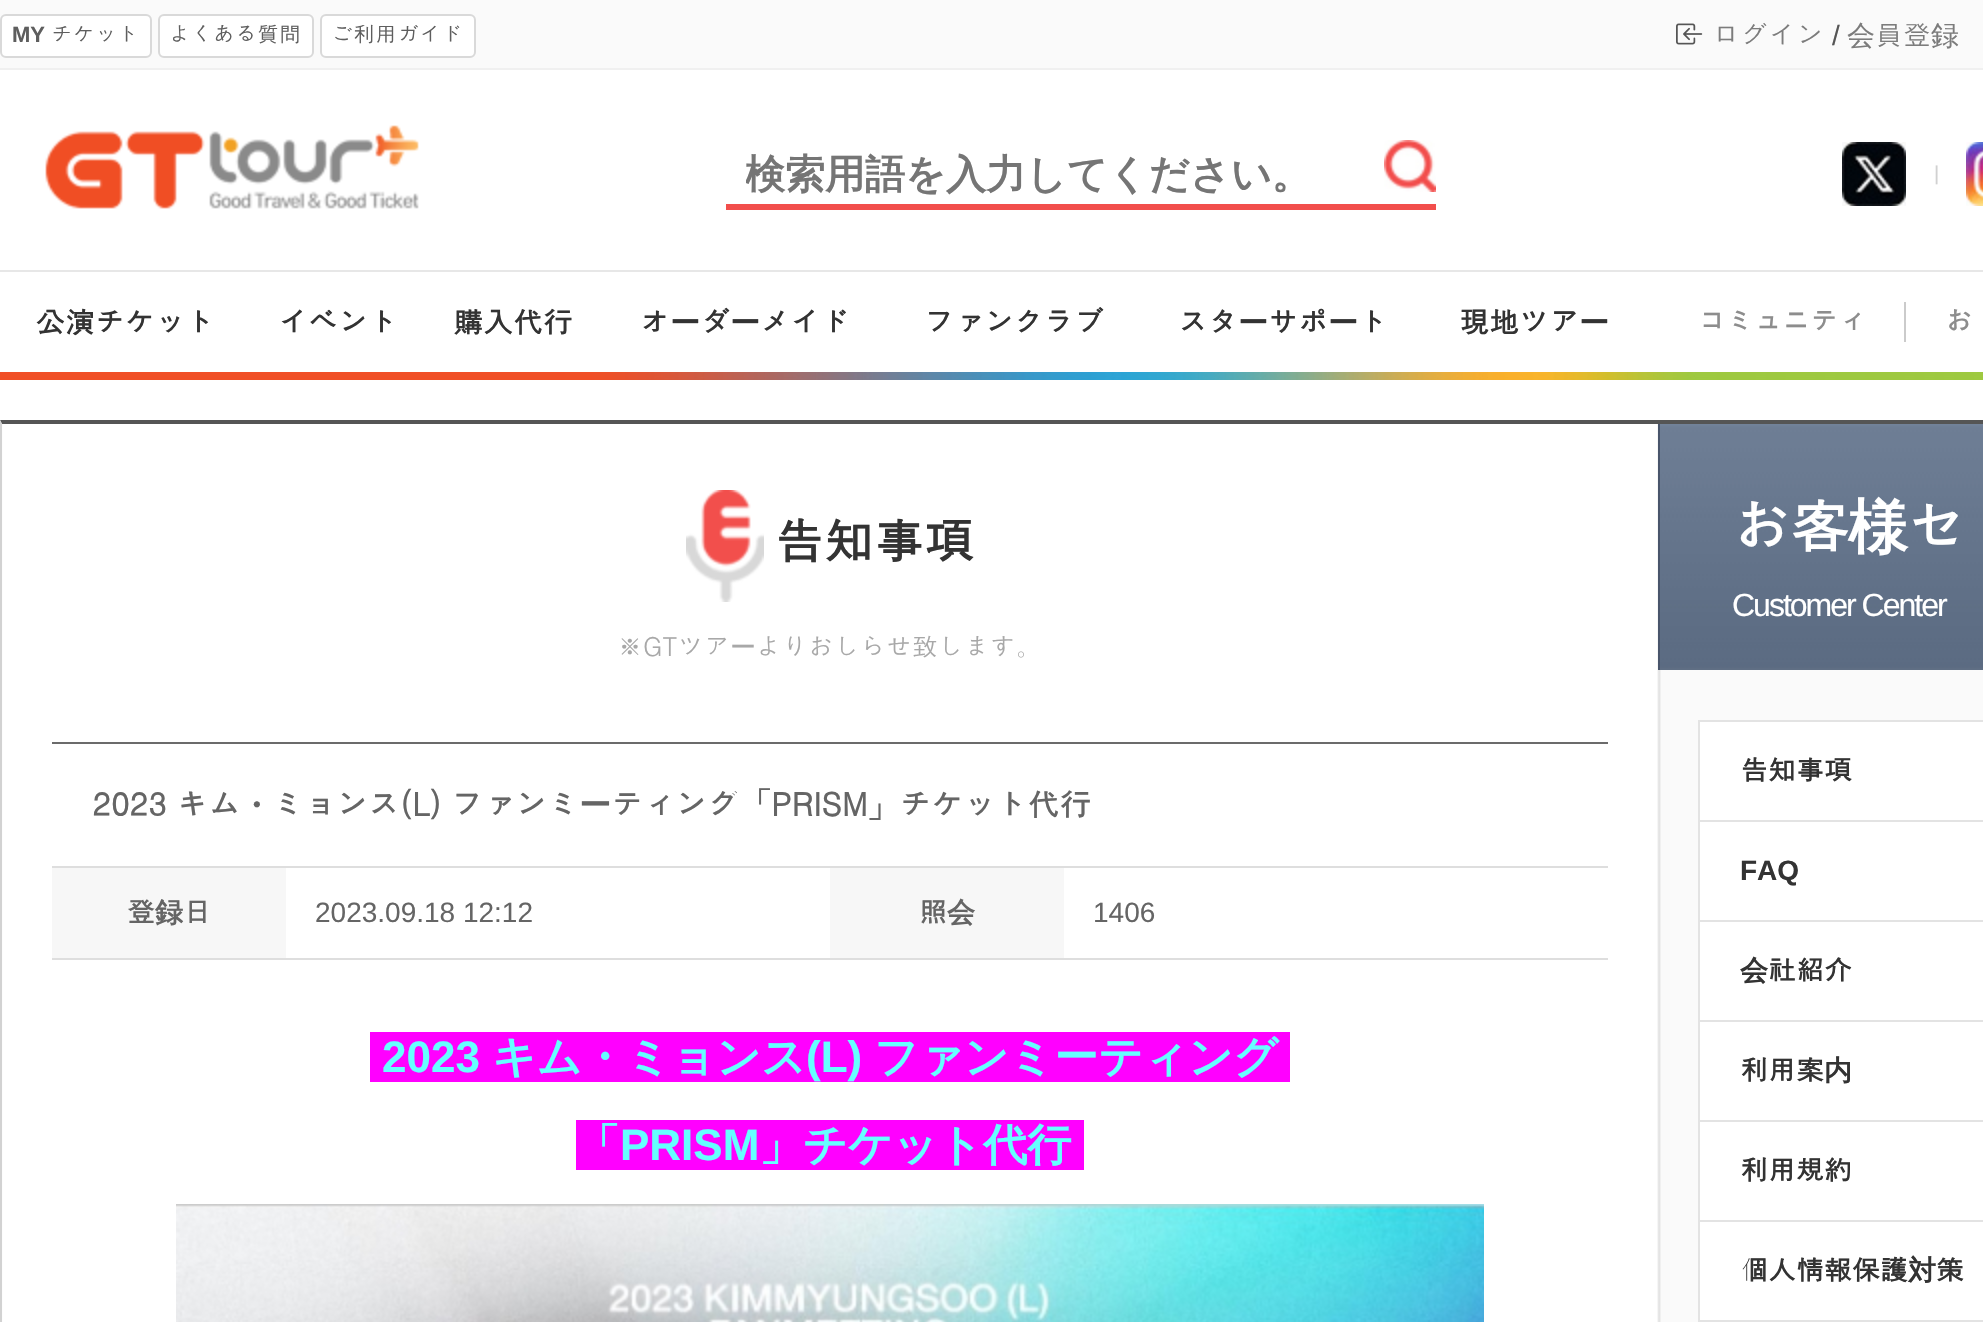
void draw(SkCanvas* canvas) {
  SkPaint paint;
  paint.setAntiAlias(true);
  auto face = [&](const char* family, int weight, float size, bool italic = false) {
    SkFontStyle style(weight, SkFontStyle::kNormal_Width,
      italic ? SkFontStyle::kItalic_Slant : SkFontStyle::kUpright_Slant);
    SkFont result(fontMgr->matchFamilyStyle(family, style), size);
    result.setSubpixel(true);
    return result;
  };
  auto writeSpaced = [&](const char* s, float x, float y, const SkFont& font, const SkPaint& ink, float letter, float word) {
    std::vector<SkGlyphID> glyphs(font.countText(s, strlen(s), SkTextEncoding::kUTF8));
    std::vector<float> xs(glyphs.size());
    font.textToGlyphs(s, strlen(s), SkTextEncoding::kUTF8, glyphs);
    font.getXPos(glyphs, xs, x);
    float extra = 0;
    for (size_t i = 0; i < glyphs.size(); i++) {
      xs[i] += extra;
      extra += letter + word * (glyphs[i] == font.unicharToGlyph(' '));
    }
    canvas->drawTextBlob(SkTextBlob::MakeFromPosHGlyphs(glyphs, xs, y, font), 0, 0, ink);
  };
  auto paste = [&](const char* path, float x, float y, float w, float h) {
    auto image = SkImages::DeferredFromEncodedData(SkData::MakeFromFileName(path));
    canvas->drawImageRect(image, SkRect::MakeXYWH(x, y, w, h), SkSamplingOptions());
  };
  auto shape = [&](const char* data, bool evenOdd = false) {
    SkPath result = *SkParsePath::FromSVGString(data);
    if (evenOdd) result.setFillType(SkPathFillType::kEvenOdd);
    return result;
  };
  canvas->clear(0xffffffff);
  paint.setColor(0xfffafafa);
  canvas->drawRect(SkRect::MakeXYWH(0, 0, 1983, 68), paint);
  paint.setColor(0xfff0f0f0);
  canvas->drawRect(SkRect::MakeXYWH(0, 68, 1983, 2), paint);
  paint.setColor(0xffffffff);
  canvas->drawRoundRect(SkRect::MakeXYWH(1, 15, 150, 42), 5, 5, paint);
  paint.setStroke(true);
  paint.setStrokeWidth(2);
  paint.setColor(0xffd9d9d9);
  canvas->drawRoundRect(SkRect::MakeXYWH(1, 15, 150, 42), 5, 5, paint);
  paint.setStroke(false);
  paint.setColor(0xffffffff);
  canvas->drawRoundRect(SkRect::MakeXYWH(159, 15, 154, 42), 5, 5, paint);
  paint.setStroke(true);
  paint.setColor(0xffd9d9d9);
  canvas->drawRoundRect(SkRect::MakeXYWH(159, 15, 154, 42), 5, 5, paint);
  paint.setStroke(false);
  paint.setColor(0xffffffff);
  canvas->drawRoundRect(SkRect::MakeXYWH(321, 15, 154, 42), 5, 5, paint);
  paint.setStroke(true);
  paint.setColor(0xffd9d9d9);
  canvas->drawRoundRect(SkRect::MakeXYWH(321, 15, 154, 42), 5, 5, paint);
  paste("img/1.png", 1676, 23, 27, 22);
  paint.setStroke(false);
  paint.setColor(0xffe7e7e7);
  canvas->drawRect(SkRect::MakeXYWH(0, 270, 1983, 2), paint);
  paste("img/2.png", 45, 125, 374, 84);
  paint.setColor(0xfff24e4c);
  canvas->drawRect(SkRect::MakeXYWH(726, 204, 710, 6), paint);
  paste("img/3.png", 1384, 140, 52, 52);
  paste("img/4.png", 1842, 142, 64, 64);
  paste("img/5.png", 1966, 142, 17, 64);
  paint.setColor(0xffcbcbcb);
  canvas->drawRect(SkRect::MakeXYWH(1904, 302, 2, 40), paint);
  paste("img/6.png", 0, 372, 1983, 8);
  paste("img/7.png", 0, 420, 1983, 902);
  paint.setColor(0xff555555);
  canvas->drawPath(shape("M0 420H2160L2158 424H2Z"), paint);
  paint.setColor(0xffd2d2d2);
  canvas->drawPath(shape("M0 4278V420L2 424V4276Z"), paint);
  paste("img/8.png", 686, 490, 78, 112);
  {
    const struct { float x, y, w, h; SkColor color; } items[] = {
      {52, 742, 1556, 2, 0xff6b6b6b},
      {52, 866, 1556, 2, 0xffdedede},
      {52, 868, 234, 90, 0xfff7f7f7},
      {52, 958, 1556, 2, 0xffdedede},
      {830, 868, 234, 90, 0xfff7f7f7},
      {370, 1032, 920, 50, 0xffff00ff},
      {576, 1120, 508, 50, 0xffff00ff},
    };
    for (auto [x, y, w, h, color] : items) {
      paint.setColor(color);
      canvas->drawRect(SkRect::MakeXYWH(x, y, w, h), paint);
    }
  }
  paste("img/9.png", 176, 1204, 1308, 118);
  paste("img/10.png", 1660, 424, 323, 246);
  paint.setColor(0xff49556b);
  canvas->drawRect(SkRect::MakeXYWH(1658, 424, 2, 246), paint);
  paint.setColor(0xffffffff);
  canvas->drawRect(SkRect::MakeXYWH(1700, 722, 283, 598), paint);
  paint.setStroke(true);
  paint.setColor(0xffe3e3e3);
  canvas->drawRect(SkRect::MakeXYWH(1699, 721, 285, 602), paint);
  paint.setStroke(false);
  {
    const struct { float x, y, w, h; SkColor color; } items[] = {
      {1700, 820, 283, 2, 0xffe3e3e3},
      {1700, 920, 283, 2, 0xffe3e3e3},
      {1700, 1020, 283, 2, 0xffe3e3e3},
      {1700, 1120, 283, 2, 0xffe3e3e3},
      {1700, 1220, 283, 2, 0xffe3e3e3},
      {1700, 1320, 283, 2, 0xffe3e3e3},
    };
    for (auto [x, y, w, h, color] : items) {
      paint.setColor(color);
      canvas->drawRect(SkRect::MakeXYWH(x, y, w, h), paint);
    }
  }
  auto f0 = face("Liberation Sans", 700, 22);
  paint.setColor(0xff5e5e5e);
  canvas->drawString("MY", 12, 42, f0, paint);
  auto f1 = face("Dotum", 400, 22);
  {
    const struct { const char* s; float x, y; } items[] = {
      {"チケット", 51, 42},
      {"よくある質問", 169, 42},
      {"ご利用ガイド", 331, 42},
    };
    for (auto [s, x, y] : items) {
      canvas->drawString(s, x, y, f1, paint);
    }
  }
  auto f2 = face("Dotum", 400, 28);
  paint.setColor(0xff7c7c7c);
  canvas->drawString("ログイン", 1712, 45, f2, paint);
  auto f3 = face("Liberation Sans", 400, 28);
  paint.setColor(0xff555555);
  canvas->drawString("/", 1832, 45, f3, paint);
  auto f4 = face("WenQuanYi Zen Hei", 500, 28);
  paint.setColor(0xff7c7c7c);
  canvas->drawString("会", 1847, 45, f4, paint);
  canvas->drawString("員登", 1875, 45, f2, paint);
  canvas->drawString("録", 1931, 45, f4, paint);
  canvas->save();
  canvas->clipRect(SkRect::MakeXYWH(746, 148, 620, 54));
  auto f5 = face("WenQuanYi Zen Hei", 700, 40);
  paint.setColor(0xff757575);
  canvas->drawString("検索用語を入力してください。", 745, 188, f5, paint);
  canvas->restore();
  auto f6 = face("Liberation Sans", 400, 20);
  paint.setColor(0xffd1d1d1);
  canvas->drawString("|", 1934, 180, f6, paint);
  auto f7 = face("Dotum", 700, 30);
  paint.setColor(0xff333333);
  {
    const struct { const char* s; float x, y; } items[] = {
      {"公演チケット", 35, 333},
      {"イベント", 278, 333},
      {"購入代行", 453, 333},
      {"オ", 640, 333},
    };
    for (auto [s, x, y] : items) {
      canvas->drawString(s, x, y, f7, paint);
    }
  }
  auto f8 = face("WenQuanYi Zen Hei", 700, 30);
  canvas->drawString("ー", 670, 333, f8, paint);
  canvas->drawString("ダ", 700, 333, f7, paint);
  canvas->drawString("ー", 730, 333, f8, paint);
  {
    const struct { const char* s; float x, y; } items[] = {
      {"メイド", 760, 333},
      {"ファンクラブ", 924, 333},
      {"スタ", 1178, 333},
    };
    for (auto [s, x, y] : items) {
      canvas->drawString(s, x, y, f7, paint);
    }
  }
  canvas->drawString("ー", 1238, 333, f8, paint);
  canvas->drawString("サポ", 1268, 333, f7, paint);
  canvas->drawString("ー", 1328, 333, f8, paint);
  canvas->drawString("ト", 1358, 333, f7, paint);
  canvas->drawString("現地ツア", 1459, 333, f7, paint);
  canvas->drawString("ー", 1579, 333, f8, paint);
  auto f9 = face("Dotum", 700, 28);
  paint.setColor(0xff8d8d8d);
  canvas->drawString("コミュニティ", 1698, 331, f9, paint);
  canvas->drawString("お", 1945, 331, f9, paint);
  auto f10 = face("Dotum", 700, 50);
  paint.setColor(0xff333333);
  canvas->drawString("告知事項", 774, 559, f10, paint);
  auto f11 = face("Dotum", 400, 26);
  paint.setColor(0xffa8a8a8);
  canvas->drawString("※GTツア", 617, 656, f11, paint);
  auto f12 = face("WenQuanYi Zen Hei", 500, 26);
  canvas->drawString("ー", 730, 656, f12, paint);
  canvas->drawString("よりおしらせ致します。", 756, 656, f11, paint);
  auto f13 = face("Dotum", 700, 32);
  paint.setColor(0xff656565);
  writeSpaced("2023 キム", 92, 816, f13, paint, 0, -1);
  auto f14 = face("WenQuanYi Zen Hei", 700, 32);
  canvas->drawString("・", 240, 816, f14, paint);
  writeSpaced("ミョンス(L) ファンミ", 272, 816, f13, paint, 0, -1);
  canvas->drawString("ー", 579, 816, f14, paint);
  canvas->drawString("ティング「PRISM」チケット代行", 611, 816, f13, paint);
  canvas->drawString("登", 127, 922, f9, paint);
  auto f15 = face("WenQuanYi Zen Hei", 700, 28);
  canvas->drawString("録", 155, 922, f15, paint);
  canvas->drawString("日", 183, 922, f9, paint);
  canvas->drawString("2023.09.18 12:12", 315, 922, f3, paint);
  canvas->drawString("照", 919, 922, f9, paint);
  canvas->drawString("会", 947, 922, f15, paint);
  canvas->drawString("1406", 1093, 922, f3, paint);
  auto f16 = face("Liberation Sans", 700, 44);
  paint.setColor(0xff66ffff);
  canvas->drawString("2023", 382, 1072, f16, paint);
  auto f17 = face("WenQuanYi Zen Hei", 700, 44);
  canvas->drawString("キム・ミョンス", 492, 1072, f17, paint);
  canvas->drawString("(L)", 806, 1072, f16, paint);
  canvas->drawString("ファンミーティング", 874, 1072, f17, paint);
  canvas->drawString("「", 576, 1160, f17, paint);
  canvas->drawString("PRISM", 620, 1160, f16, paint);
  canvas->drawString("」チケット代行", 759, 1160, f17, paint);
  auto f18 = face("Dotum", 700, 60);
  paint.setColor(0xffffffff);
  writeSpaced("お客", 1732, 548, f18, paint, -2, 0);
  auto f19 = face("WenQuanYi Zen Hei", 700, 60);
  writeSpaced("様", 1848, 548, f19, paint, -2, 0);
  writeSpaced("セ", 1906, 548, f18, paint, -2, 0);
  auto f20 = face("Liberation Sans", 400, 32);
  writeSpaced("Customer Center", 1732, 616, f20, paint, -2, 0);
  paint.setColor(0xff333333);
  canvas->drawString("告知事項", 1740, 780, f9, paint);
  auto f21 = face("Liberation Sans", 700, 28);
  canvas->drawString("FAQ", 1740, 880, f21, paint);
  canvas->drawString("会", 1740, 980, f15, paint);
  canvas->drawString("社紹介", 1768, 980, f9, paint);
  canvas->drawString("利用案", 1740, 1080, f9, paint);
  canvas->drawString("内", 1824, 1080, f15, paint);
  canvas->drawString("利用規約", 1740, 1180, f9, paint);
  canvas->drawString("個人情報保護", 1740, 1280, f9, paint);
  canvas->drawString("対", 1908, 1280, f15, paint);
  canvas->drawString("策", 1936, 1280, f9, paint);
}
